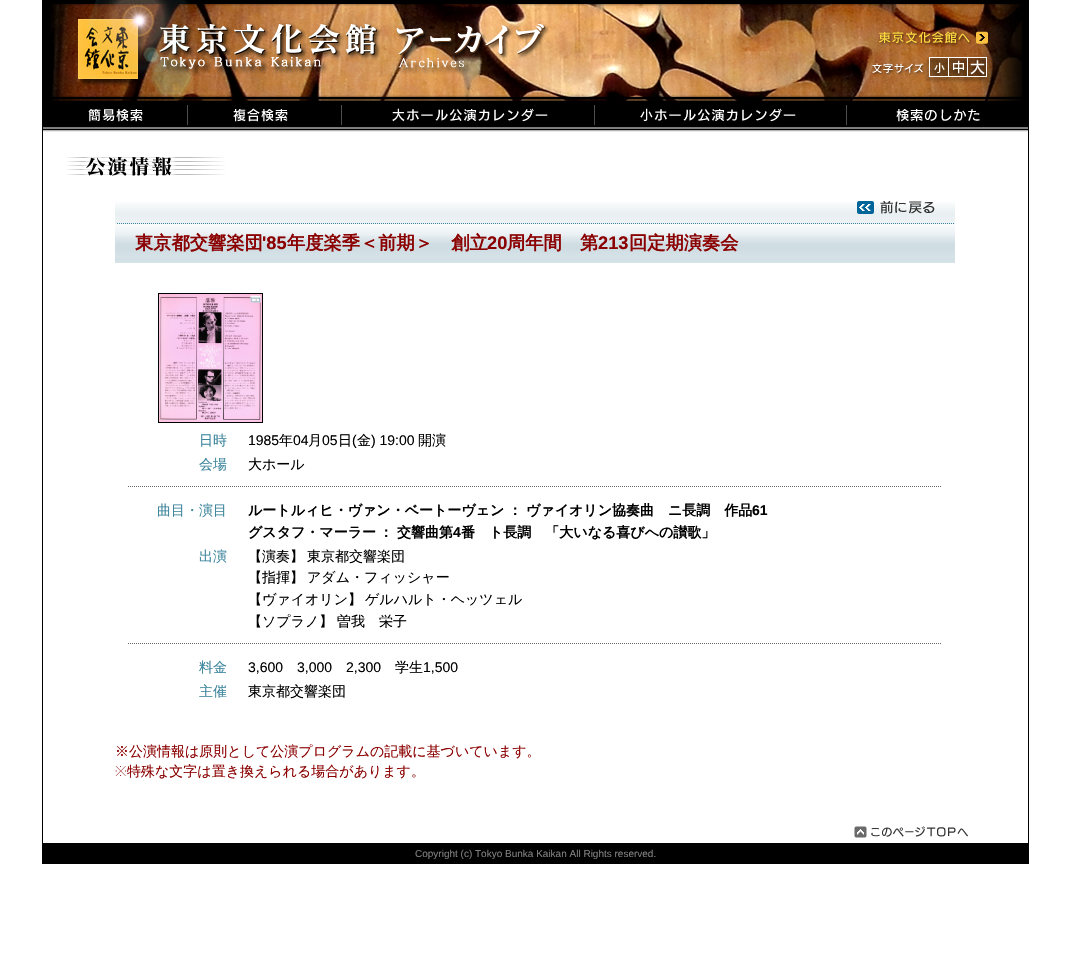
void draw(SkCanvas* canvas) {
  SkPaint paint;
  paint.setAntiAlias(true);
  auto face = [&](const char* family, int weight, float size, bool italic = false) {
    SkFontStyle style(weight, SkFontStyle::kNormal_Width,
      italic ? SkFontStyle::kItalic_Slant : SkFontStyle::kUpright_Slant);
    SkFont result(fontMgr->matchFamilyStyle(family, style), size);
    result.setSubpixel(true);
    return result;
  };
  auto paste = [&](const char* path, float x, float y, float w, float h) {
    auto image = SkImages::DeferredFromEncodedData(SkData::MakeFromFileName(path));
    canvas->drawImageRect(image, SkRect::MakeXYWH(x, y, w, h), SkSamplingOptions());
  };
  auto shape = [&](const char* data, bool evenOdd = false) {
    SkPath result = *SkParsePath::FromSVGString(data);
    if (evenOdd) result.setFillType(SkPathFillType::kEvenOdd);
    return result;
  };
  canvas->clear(0xffffffff);
  paint.setColor(0xff000000);
  canvas->drawRect(SkRect::MakeXYWH(1028, 0, 1, 864), paint);
  canvas->drawRect(SkRect::MakeXYWH(42, 0, 1, 864), paint);
  paste("img/1.png", 43, 0, 985, 101);
  paste("img/2.png", 78, 0, 471, 86);
  paste("img/3.png", 879, 31, 109, 15);
  paste("img/4.png", 872, 57, 57, 26);
  paste("img/5.png", 929, 57, 19, 26);
  paste("img/6.png", 948, 57, 19, 26);
  paste("img/7.png", 967, 57, 21, 26);
  paste("img/8.png", 43, 101, 144, 31);
  paste("img/9.png", 187, 101, 154, 31);
  paste("img/10.png", 341, 101, 253, 31);
  paste("img/11.png", 594, 101, 252, 31);
  paste("img/12.png", 846, 101, 182, 31);
  paste("img/13.png", 67, 157, 158, 19);
  paste("img/14.png", 115, 202, 840, 22);
  paste("img/15.png", 857, 201, 78, 13);
  paste("img/16.png", 115, 224, 840, 39);
  paint.setStroke(true);
  paint.setStrokeWidth(1);
  canvas->drawRect(SkRect::MakeXYWH(158.5f, 293.5f, 104, 129), paint);
  paste("img/17.png", 159, 294, 103, 128);
  paint.setColor(0xff666666);
  paint.setPathEffect(SkDashPathEffect::Make({{1, 1}}, 0));
  canvas->drawPath(shape("M128 486.5H942"), paint);
  paint.setPathEffect(nullptr);
  paint.setPathEffect(SkDashPathEffect::Make({{1, 1}}, 0));
  canvas->drawPath(shape("M128 643.5H942"), paint);
  paint.setPathEffect(nullptr);
  paste("img/18.png", 854, 826, 114, 12);
  paint.setStroke(false);
  paint.setColor(0xff000000);
  canvas->drawRect(SkRect::MakeXYWH(43, 843, 985, 21), paint);
  auto f0 = face("WenQuanYi Zen Hei", 700, 18.25f);
  paint.setColor(0xff8b0000);
  canvas->drawString("東京都交響楽団", 135, 249, f0, paint);
  auto f1 = face("Liberation Sans", 700, 18.25f);
  canvas->drawString("'85", 262, 249, f1, paint);
  canvas->drawString("年度楽季＜前期＞　創立", 287, 249, f0, paint);
  canvas->drawString("20", 487, 249, f1, paint);
  canvas->drawString("周年間　第", 507, 249, f0, paint);
  canvas->drawString("213", 598, 249, f1, paint);
  canvas->drawString("回定期演奏会", 629, 249, f0, paint);
  auto f2 = face("WenQuanYi Zen Hei", 500, 14);
  paint.setColor(0xff3e869d);
  canvas->drawString("日時", 199, 445, f2, paint);
  auto f3 = face("Liberation Sans", 400, 14);
  paint.setColor(0xff000000);
  canvas->drawString("1985", 248, 445, f3, paint);
  canvas->drawString("年", 279, 445, f2, paint);
  canvas->drawString("04", 293, 445, f3, paint);
  canvas->drawString("月", 308, 445, f2, paint);
  canvas->drawString("05", 322, 445, f3, paint);
  canvas->drawString("日", 338, 445, f2, paint);
  canvas->drawString("(", 352, 445, f3, paint);
  canvas->drawString("金", 357, 445, f2, paint);
  canvas->drawString(") 19:00", 371, 445, f3, paint);
  canvas->drawString("開演", 418, 445, f2, paint);
  paint.setColor(0xff3e869d);
  canvas->drawString("会場", 199, 469, f2, paint);
  paint.setColor(0xff000000);
  canvas->drawString("大ホール", 248, 469, f2, paint);
  paint.setColor(0xff3e869d);
  canvas->drawString("曲目・演目", 157, 515, f2, paint);
  auto f4 = face("WenQuanYi Zen Hei", 700, 14);
  paint.setColor(0xff000000);
  {
    const struct { const char* s; float x, y; } items[] = {
      {"ルートルィヒ・ヴァン・ベートーヴェン", 248, 515},
      {"：", 508, 515},
      {"ヴァイオリン協奏曲　ニ長調　作品", 526, 515},
    };
    for (auto [s, x, y] : items) {
      canvas->drawString(s, x, y, f4, paint);
    }
  }
  auto f5 = face("Liberation Sans", 700, 14);
  canvas->drawString("61", 752, 515, f5, paint);
  {
    const struct { const char* s; float x, y; } items[] = {
      {"グスタフ・マーラー", 248, 537},
      {"：", 379, 537},
      {"交響曲第", 397, 537},
    };
    for (auto [s, x, y] : items) {
      canvas->drawString(s, x, y, f4, paint);
    }
  }
  canvas->drawString("4", 453, 537, f5, paint);
  canvas->drawString("番　ト長調　「大いなる喜びへの讃歌」", 461, 537, f4, paint);
  paint.setColor(0xff3e869d);
  canvas->drawString("出演", 199, 561, f2, paint);
  paint.setColor(0xff000000);
  {
    const struct { const char* s; float x, y; } items[] = {
      {"【演奏】", 248, 561},
      {"東京都交響楽団", 307, 561},
      {"【指揮】", 248, 582},
      {"アダム・フィッシャー", 307, 582},
      {"【ヴァイオリン】", 248, 604},
      {"ゲルハルト・ヘッツェル", 365, 604},
      {"【ソプラノ】", 248, 626},
      {"曽我　栄子", 337, 626},
    };
    for (auto [s, x, y] : items) {
      canvas->drawString(s, x, y, f2, paint);
    }
  }
  paint.setColor(0xff3e869d);
  canvas->drawString("料金", 199, 672, f2, paint);
  paint.setColor(0xff000000);
  {
    const struct { const char* s; float x, y; } items[] = {
      {"3,600", 248, 672},
      {"3,000", 297, 672},
      {"2,300", 346, 672},
    };
    for (auto [s, x, y] : items) {
      canvas->drawString(s, x, y, f3, paint);
    }
  }
  canvas->drawString("学生", 395, 672, f2, paint);
  canvas->drawString("1,500", 423, 672, f3, paint);
  paint.setColor(0xff3e869d);
  canvas->drawString("主催", 199, 696, f2, paint);
  paint.setColor(0xff000000);
  canvas->drawString("東京都交響楽団", 248, 696, f2, paint);
  paint.setColor(0xff8b0000);
  canvas->drawString("※公演情報は原則として公演プログラムの記載に基づいています。", 115, 756, f2, paint);
  auto f6 = face("Noto Sans", 100, 14);
  canvas->drawString("※", 115, 776, f6, paint);
  canvas->drawString("特殊な文字は置き換えられる場合があります。", 127, 776, f2, paint);
  auto f7 = face("Liberation Sans", 400, 10);
  paint.setColor(0xff808080);
  canvas->drawString("Copyright (c) Tokyo Bunka Kaikan All Rights reserved.", 415, 857, f7, paint);
}
